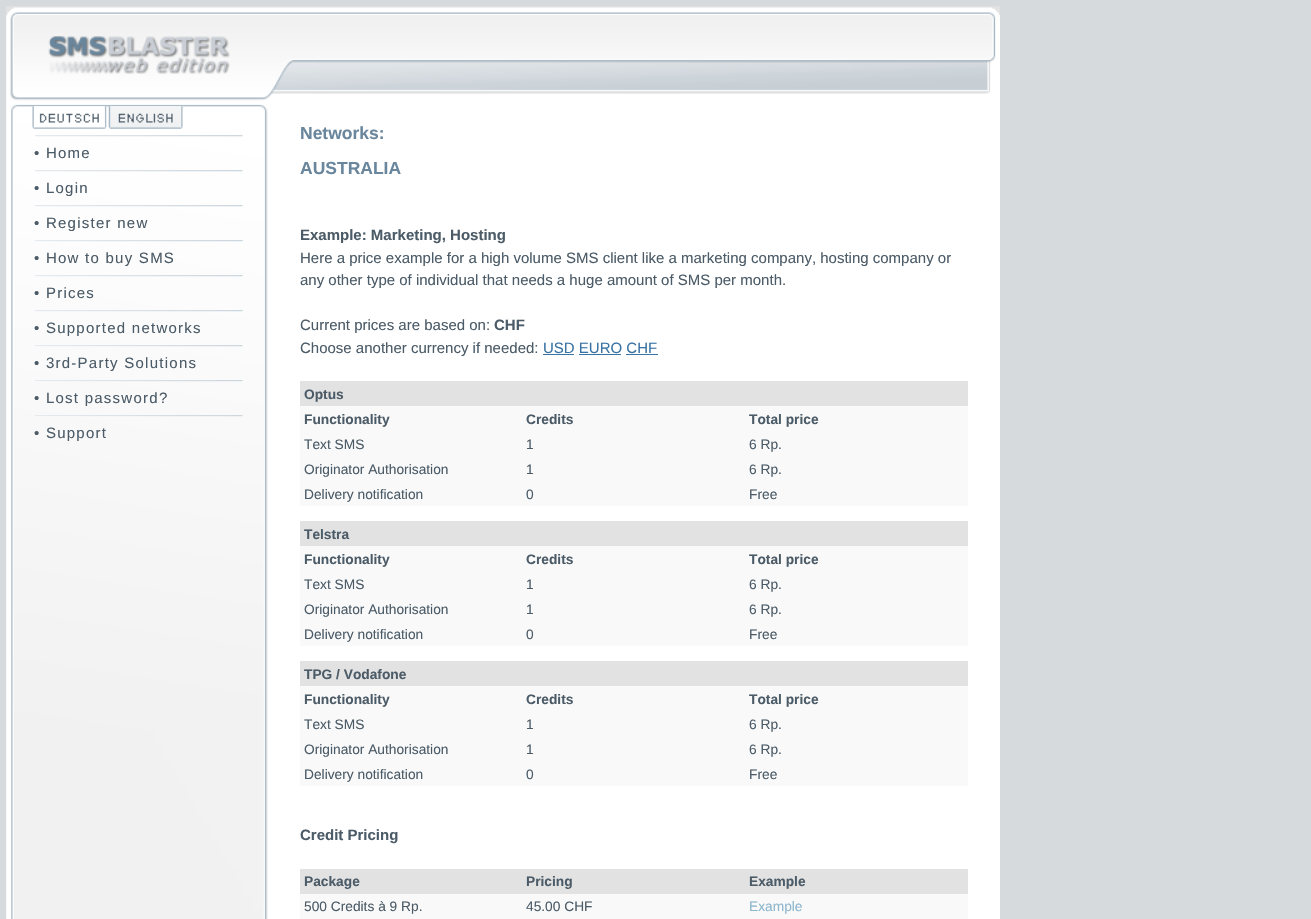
void draw(SkCanvas* canvas) {
  SkPaint paint;
  paint.setAntiAlias(true);
  auto face = [&](const char* family, int weight, float size, bool italic = false) {
    SkFontStyle style(weight, SkFontStyle::kNormal_Width,
      italic ? SkFontStyle::kItalic_Slant : SkFontStyle::kUpright_Slant);
    SkFont result(fontMgr->matchFamilyStyle(family, style), size);
    result.setSubpixel(true);
    return result;
  };
  auto writeSpaced = [&](const char* s, float x, float y, const SkFont& font, const SkPaint& ink, float letter, float word) {
    std::vector<SkGlyphID> glyphs(font.countText(s, strlen(s), SkTextEncoding::kUTF8));
    std::vector<float> xs(glyphs.size());
    font.textToGlyphs(s, strlen(s), SkTextEncoding::kUTF8, glyphs);
    font.getXPos(glyphs, xs, x);
    float extra = 0;
    for (size_t i = 0; i < glyphs.size(); i++) {
      xs[i] += extra;
      extra += letter + word * (glyphs[i] == font.unicharToGlyph(' '));
    }
    canvas->drawTextBlob(SkTextBlob::MakeFromPosHGlyphs(glyphs, xs, y, font), 0, 0, ink);
  };
  auto paste = [&](const char* path, float x, float y, float w, float h) {
    auto image = SkImages::DeferredFromEncodedData(SkData::MakeFromFileName(path));
    canvas->drawImageRect(image, SkRect::MakeXYWH(x, y, w, h), SkSamplingOptions());
  };
  canvas->clear(0xffd7dadc);
  paste("img/1.png", 6, 6, 994, 913);
  paste("img/2.png", 32, 106, 75, 23);
  paste("img/3.png", 108, 106, 75, 23);
  paste("img/4.png", 35, 135, 208, 2);
  paste("img/5.png", 35, 170, 208, 2);
  paste("img/5.png", 35, 205, 208, 2);
  paste("img/6.png", 35, 240, 208, 2);
  paste("img/6.png", 35, 275, 208, 2);
  paste("img/7.png", 35, 310, 208, 2);
  paste("img/8.png", 35, 345, 208, 2);
  paste("img/9.png", 35, 380, 208, 2);
  paste("img/10.png", 35, 415, 208, 2);
  {
    const struct { float x, y, w, h; SkColor color; } items[] = {
      {543, 354, 31, 1, 0xff3873a3},
      {579, 354, 42, 1, 0xff3873a3},
      {626, 354, 32, 1, 0xff3873a3},
      {300, 381, 668, 25, 0xffe2e2e2},
      {300, 406, 668, 25, 0xfff9f9f9},
      {300, 431, 668, 25, 0xfff9f9f9},
      {300, 456, 668, 25, 0xfff9f9f9},
      {300, 481, 668, 25, 0xfff9f9f9},
      {300, 521, 668, 25, 0xffe2e2e2},
      {300, 546, 668, 25, 0xfff9f9f9},
      {300, 571, 668, 25, 0xfff9f9f9},
      {300, 596, 668, 25, 0xfff9f9f9},
      {300, 621, 668, 25, 0xfff9f9f9},
      {300, 661, 668, 25, 0xffe2e2e2},
      {300, 686, 668, 25, 0xfff9f9f9},
      {300, 711, 668, 25, 0xfff9f9f9},
      {300, 736, 668, 25, 0xfff9f9f9},
      {300, 761, 668, 25, 0xfff9f9f9},
      {300, 869, 668, 25, 0xffe2e2e2},
      {300, 894, 668, 25, 0xfff9f9f9},
    };
    for (auto [x, y, w, h, color] : items) {
      paint.setColor(color);
      canvas->drawRect(SkRect::MakeXYWH(x, y, w, h), paint);
    }
  }
  auto f0 = face("Liberation Sans", 400, 15);
  paint.setColor(0xff4b5b67);
  {
    const struct { const char* s; float x, y; } items[] = {
      {"• Home", 34, 158},
      {"• Login", 34, 193},
      {"• Register new", 34, 228},
      {"• How to buy SMS", 34, 263},
      {"• Prices", 34, 298},
      {"• Supported networks", 34, 333},
      {"• 3rd-Party Solutions", 34, 368},
      {"• Lost password?", 34, 403},
      {"• Support", 34, 438},
    };
    for (auto [s, x, y] : items) {
      writeSpaced(s, x, y, f0, paint, 1.25f, 0);
    }
  }
  auto f1 = face("Liberation Sans", 700, 17.5f);
  paint.setColor(0xff6a869c);
  canvas->drawString("Networks:", 300, 139, f1, paint);
  canvas->drawString("AUSTRALIA", 300, 174, f1, paint);
  auto f2 = face("Liberation Sans", 700, 15);
  paint.setColor(0xff4b5b67);
  canvas->drawString("Example: Marketing, Hosting", 300, 240, f2, paint);
  {
    const struct { const char* s; float x, y; } items[] = {
      {"Here a price example for a high volume SMS client like a marketing company, hosting company or", 300, 263},
      {"any other type of individual that needs a huge amount of SMS per month.", 300, 285},
      {"Current prices are based on:", 300, 330},
    };
    for (auto [s, x, y] : items) {
      canvas->drawString(s, x, y, f0, paint);
    }
  }
  canvas->drawString("CHF", 494, 330, f2, paint);
  canvas->drawString("Choose another currency if needed:", 300, 353, f0, paint);
  paint.setColor(0xff3873a3);
  canvas->drawString("USD EURO CHF", 543, 353, f0, paint);
  auto f3 = face("Liberation Sans", 700, 13.75f);
  paint.setColor(0xff4b5b67);
  {
    const struct { const char* s; float x, y; } items[] = {
      {"Optus", 304, 399},
      {"Functionality", 304, 424},
      {"Credits", 526, 424},
      {"Total price", 749, 424},
    };
    for (auto [s, x, y] : items) {
      canvas->drawString(s, x, y, f3, paint);
    }
  }
  auto f4 = face("Liberation Sans", 400, 13.75f);
  {
    const struct { const char* s; float x, y; } items[] = {
      {"Text SMS", 304, 449},
      {"1", 526, 449},
      {"6 Rp.", 749, 449},
      {"Originator Authorisation", 304, 474},
      {"1", 526, 474},
      {"6 Rp.", 749, 474},
      {"Delivery notification", 304, 499},
      {"0", 526, 499},
      {"Free", 749, 499},
    };
    for (auto [s, x, y] : items) {
      canvas->drawString(s, x, y, f4, paint);
    }
  }
  {
    const struct { const char* s; float x, y; } items[] = {
      {"Telstra", 304, 539},
      {"Functionality", 304, 564},
      {"Credits", 526, 564},
      {"Total price", 749, 564},
    };
    for (auto [s, x, y] : items) {
      canvas->drawString(s, x, y, f3, paint);
    }
  }
  {
    const struct { const char* s; float x, y; } items[] = {
      {"Text SMS", 304, 589},
      {"1", 526, 589},
      {"6 Rp.", 749, 589},
      {"Originator Authorisation", 304, 614},
      {"1", 526, 614},
      {"6 Rp.", 749, 614},
      {"Delivery notification", 304, 639},
      {"0", 526, 639},
      {"Free", 749, 639},
    };
    for (auto [s, x, y] : items) {
      canvas->drawString(s, x, y, f4, paint);
    }
  }
  {
    const struct { const char* s; float x, y; } items[] = {
      {"TPG / Vodafone", 304, 679},
      {"Functionality", 304, 704},
      {"Credits", 526, 704},
      {"Total price", 749, 704},
    };
    for (auto [s, x, y] : items) {
      canvas->drawString(s, x, y, f3, paint);
    }
  }
  {
    const struct { const char* s; float x, y; } items[] = {
      {"Text SMS", 304, 729},
      {"1", 526, 729},
      {"6 Rp.", 749, 729},
      {"Originator Authorisation", 304, 754},
      {"1", 526, 754},
      {"6 Rp.", 749, 754},
      {"Delivery notification", 304, 779},
      {"0", 526, 779},
      {"Free", 749, 779},
    };
    for (auto [s, x, y] : items) {
      canvas->drawString(s, x, y, f4, paint);
    }
  }
  canvas->drawString("Credit Pricing", 300, 840, f2, paint);
  {
    const struct { const char* s; float x, y; } items[] = {
      {"Package", 304, 886},
      {"Pricing", 526, 886},
      {"Example", 749, 886},
    };
    for (auto [s, x, y] : items) {
      canvas->drawString(s, x, y, f3, paint);
    }
  }
  canvas->drawString("500 Credits à 9 Rp.", 304, 911, f4, paint);
  canvas->drawString("45.00 CHF", 526, 911, f4, paint);
  paint.setColor(0xff8db6cd);
  canvas->drawString("Example", 749, 911, f4, paint);
}
